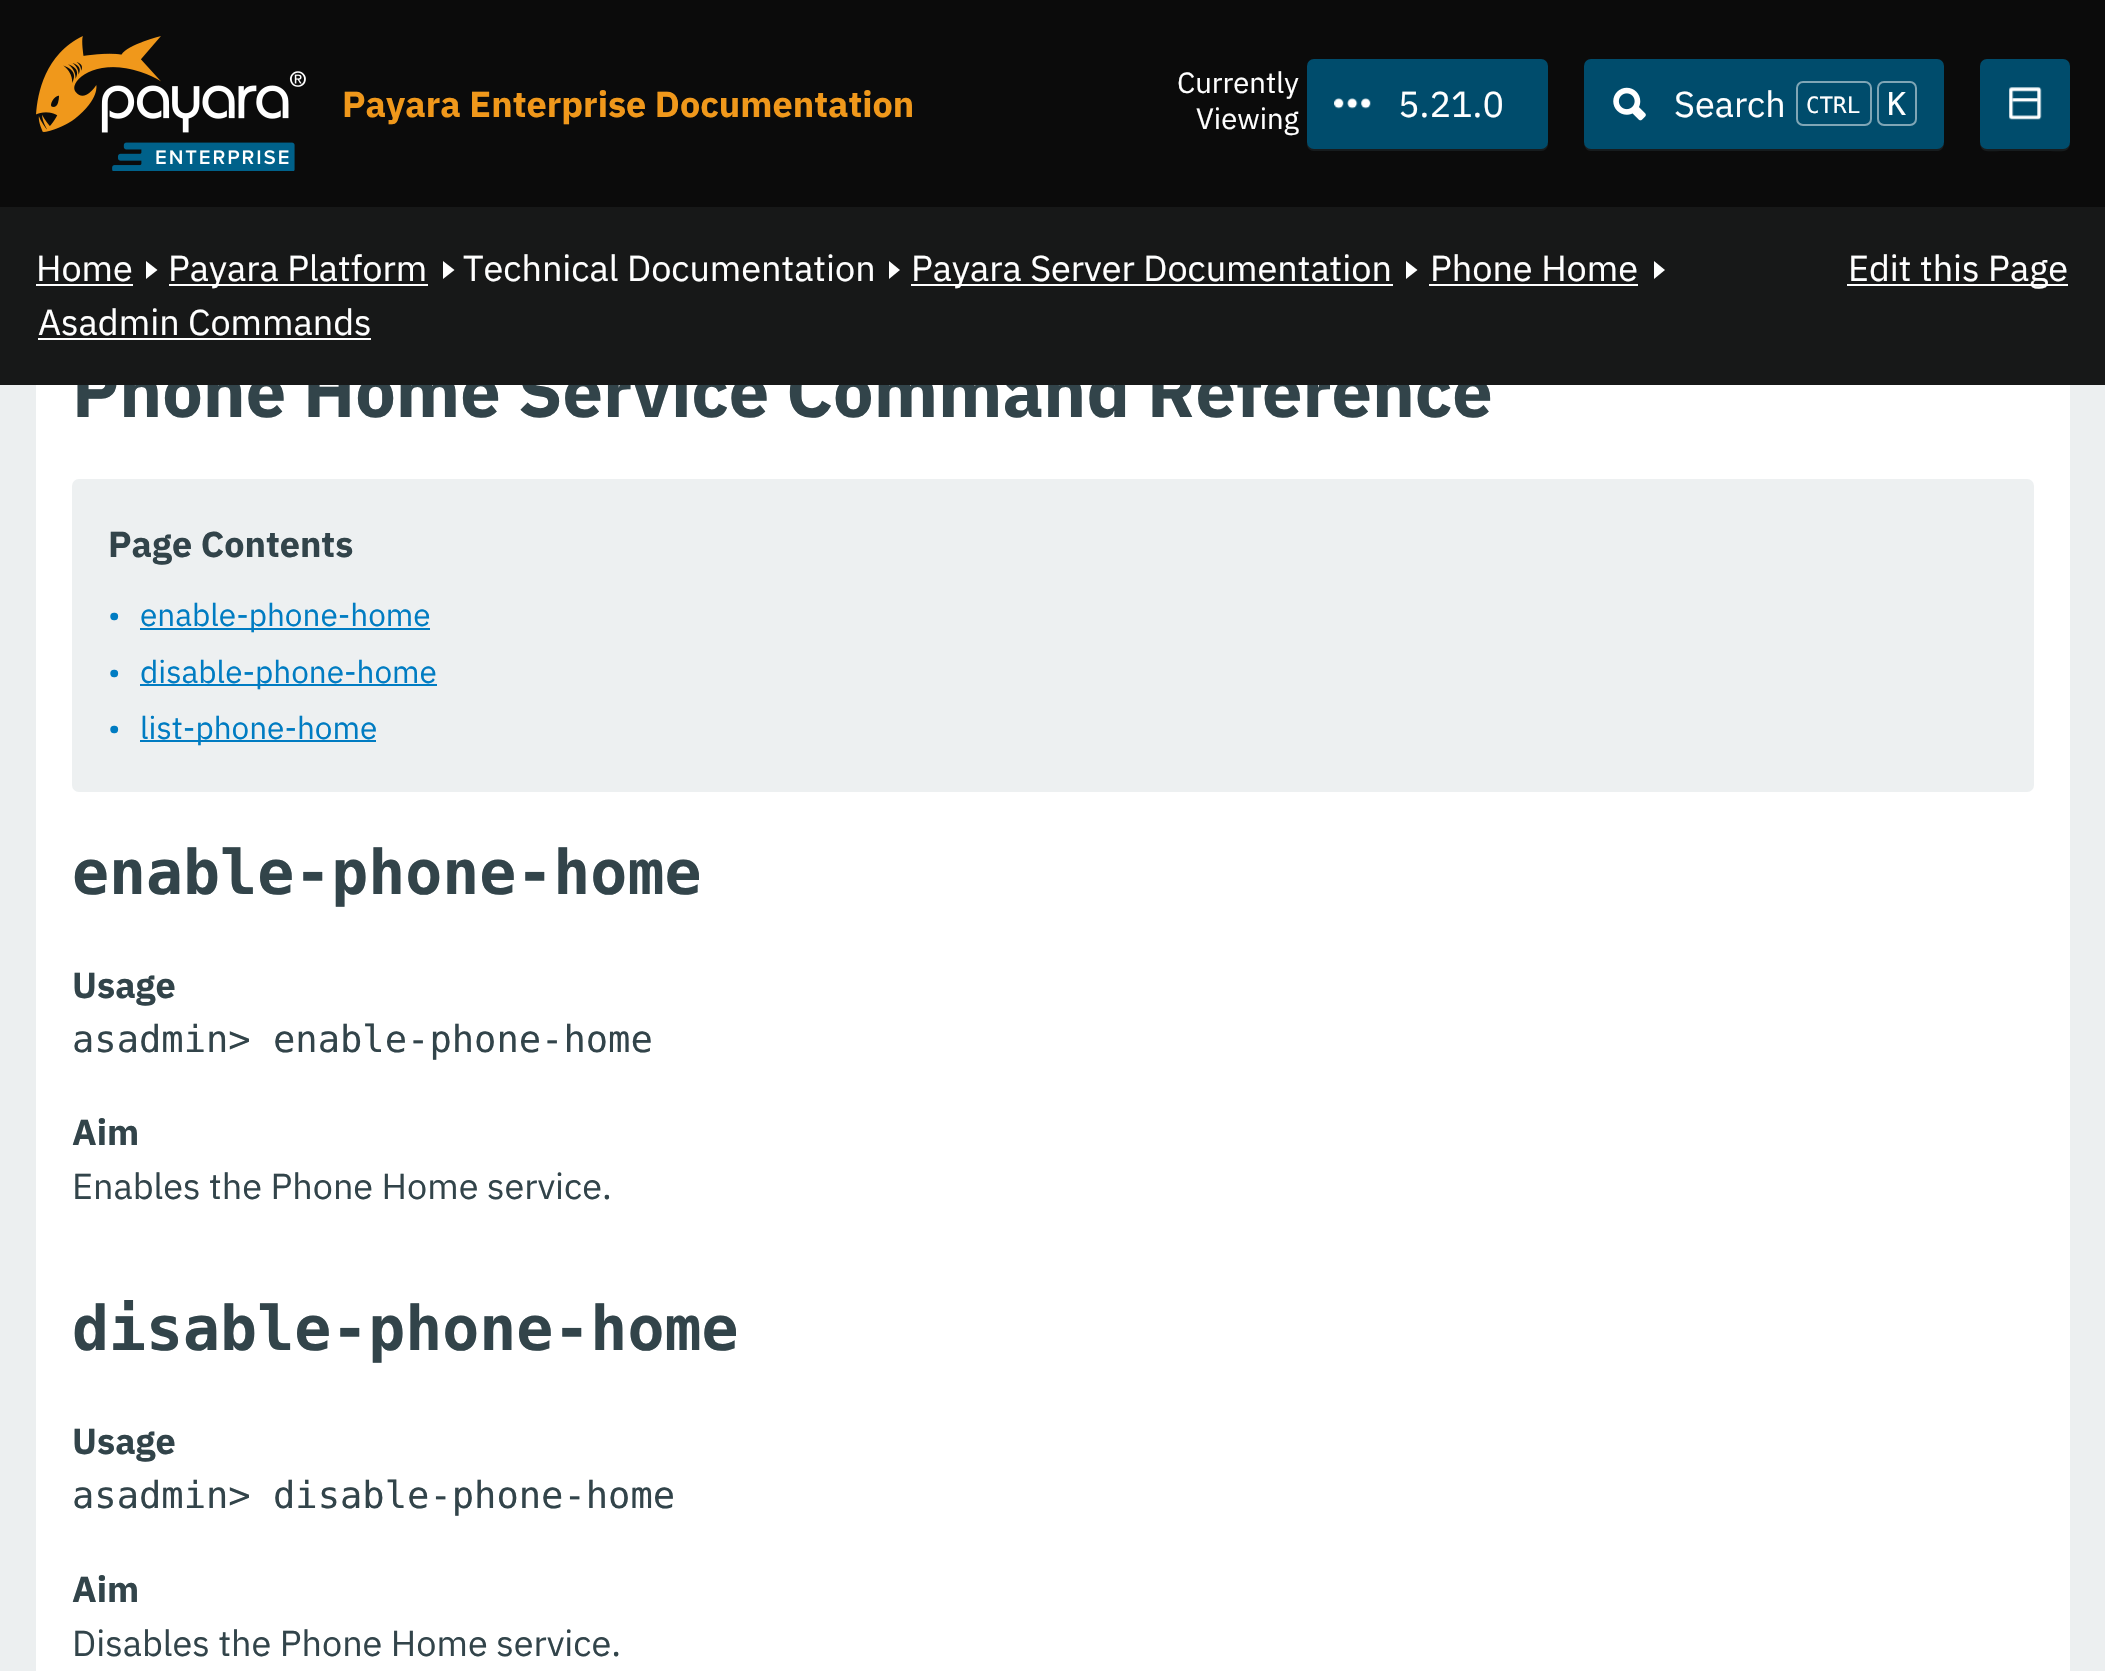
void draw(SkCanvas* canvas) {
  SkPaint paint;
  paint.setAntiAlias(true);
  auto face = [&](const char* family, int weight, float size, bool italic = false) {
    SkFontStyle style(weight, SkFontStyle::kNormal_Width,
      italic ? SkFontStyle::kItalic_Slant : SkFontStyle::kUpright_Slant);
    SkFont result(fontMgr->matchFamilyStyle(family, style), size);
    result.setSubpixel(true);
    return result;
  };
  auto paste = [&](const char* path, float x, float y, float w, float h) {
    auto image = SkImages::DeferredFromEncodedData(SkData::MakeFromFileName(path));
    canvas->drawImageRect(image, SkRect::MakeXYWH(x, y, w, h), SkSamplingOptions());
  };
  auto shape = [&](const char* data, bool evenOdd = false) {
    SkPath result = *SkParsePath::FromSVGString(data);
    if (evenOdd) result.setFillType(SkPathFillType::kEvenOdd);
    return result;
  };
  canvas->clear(0xffeceff0);
  paint.setColor(0xff0b0b0b);
  canvas->drawRect(SkRect::MakeXYWH(0, 0, 2105, 207), paint);
  paste("img/1.png", 36, 36, 270, 135);
  paint.setColor(0xff171c1e);
  canvas->drawPath(shape("M1307 66V144C1307 148 1310 151 1314 151H1541C1545 151 1548 148 1548 144V142C1548 145 1545 148 1541 148H1314C1310 148 1307 145 1307 142Z"), paint);
  paint.setColor(0xff004c6c);
  canvas->drawRoundRect(SkRect::MakeXYWH(1307, 59, 241, 90), 7, 7, paint);
  paste("img/2.png", 1334, 98, 37, 11);
  paint.setColor(0xff171c1e);
  canvas->drawPath(shape("M1584 142C1584 146 1586 151 1591 151H1938C1943 150 1944 146 1944 142C1944 145 1941 148 1937 148H1591C1587 148 1584 145 1584 142Z"), paint);
  paint.setColor(0xff004c6c);
  canvas->drawRoundRect(SkRect::MakeXYWH(1584, 59, 360, 90), 7, 7, paint);
  paste("img/3.png", 1613, 87, 33, 34);
  paint.setStroke(true);
  paint.setStrokeWidth(2);
  paint.setColor(0xff80a6b6);
  canvas->drawRoundRect(SkRect::MakeXYWH(1797, 82, 74, 43), 6, 6, paint);
  canvas->drawRoundRect(SkRect::MakeXYWH(1878, 82, 38, 43), 6, 6, paint);
  paint.setStroke(false);
  paint.setColor(0xff171c1e);
  canvas->drawPath(shape("M1980 142C1980 154 1990 151 2000 151H2050C2060 151 2070 154 2070 142C2070 145 2067 148 2063 148H1987C1983 148 1980 145 1980 142Z"), paint);
  paint.setColor(0xff004c6c);
  canvas->drawRoundRect(SkRect::MakeXYWH(1980, 59, 90, 90), 7, 7, paint);
  paste("img/4.png", 2009, 87, 33, 33);
  paint.setColor(0xffffffff);
  canvas->drawRect(SkRect::MakeXYWH(36, 385, 2034, 1286), paint);
  paint.setColor(0xffedf0f1);
  canvas->drawRoundRect(SkRect::MakeXYWH(72, 479, 1962, 313), 7, 7, paint);
  {
    const struct { float x, y, w, h; SkColor color; } items[] = {
      {140, 628, 290, 2, 0xff007cc2},
      {140, 684, 297, 2, 0xff007cc2},
      {140, 740, 236, 2, 0xff007cc2},
    };
    for (auto [x, y, w, h, color] : items) {
      paint.setColor(color);
      canvas->drawRect(SkRect::MakeXYWH(x, y, w, h), paint);
    }
  }
  auto f0 = face("IBM Plex Sans", 700, 36);
  paint.setColor(0xfff0981b);
  canvas->drawString("Payara Enterprise Documentation", 342, 117, f0, paint);
  auto f1 = face("IBM Plex Sans", 400, 29.25f);
  paint.setColor(0xffffffff);
  canvas->drawString("Currently", 1177, 93, f1, paint);
  canvas->drawString("Viewing", 1196, 129, f1, paint);
  auto f2 = face("IBM Plex Sans", 400, 36);
  canvas->drawString("5.21.0", 1398, 117, f2, paint);
  canvas->drawString("Search", 1674, 117, f2, paint);
  auto f3 = face("DejaVu Sans Mono", 400, 22.5f);
  canvas->drawString("CTRL", 1806, 113, f3, paint);
  auto f4 = face("DejaVu Sans Mono", 400, 31.5f);
  canvas->drawString("K", 1887, 115, f4, paint);
  auto f5 = face("IBM Plex Sans", 700, 72);
  paint.setColor(0xff32444a);
  canvas->drawString("Phone Home Service Command Reference", 72, 417, f5, paint);
  paint.setColor(0xff171818);
  canvas->drawRect(SkRect::MakeXYWH(0, 207, 2105, 178), paint);
  paint.setColor(0xffffffff);
  canvas->drawRect(SkRect::MakeXYWH(1847, 284, 221, 2), paint);
  canvas->drawString("Edit this Page", 1848, 281, f2, paint);
  canvas->drawString("Asadmin Commands", 38, 335, f2, paint);
  canvas->drawRect(SkRect::MakeXYWH(38, 338, 333, 2), paint);
  canvas->drawPath(shape("M1654 279V261L1665 270Z"), paint);
  canvas->drawString("Phone Home", 1430, 281, f2, paint);
  canvas->drawRect(SkRect::MakeXYWH(1429, 284, 209, 2), paint);
  canvas->drawPath(shape("M1406 279V261L1417.5 270Z"), paint);
  canvas->drawRect(SkRect::MakeXYWH(911, 284, 482, 2), paint);
  canvas->drawString("Payara Server Documentation", 911, 281, f2, paint);
  canvas->drawPath(shape("M889 279V261L900 270Z"), paint);
  canvas->drawString("Technical Documentation", 463, 281, f2, paint);
  canvas->drawPath(shape("M443 279V261L454.5 270Z"), paint);
  canvas->drawRect(SkRect::MakeXYWH(169, 284, 259, 2), paint);
  canvas->drawString("Payara Platform", 168, 281, f2, paint);
  canvas->drawPath(shape("M146 279V261L157.5 270Z"), paint);
  canvas->drawString("Home", 36, 281, f2, paint);
  canvas->drawRect(SkRect::MakeXYWH(36, 284, 97, 2), paint);
  paint.setColor(0xff32444a);
  canvas->drawString("Page Contents", 108, 557, f0, paint);
  auto f6 = face("IBM Plex Sans", 400, 31.5f);
  paint.setColor(0xff007cc2);
  {
    const struct { const char* s; float x, y; } items[] = {
      {"•", 108, 626},
      {"enable-phone-home", 140, 626},
      {"•", 108, 683},
      {"disable-phone-home", 140, 683},
      {"•", 108, 739},
      {"list-phone-home", 140, 739},
    };
    for (auto [s, x, y] : items) {
      canvas->drawString(s, x, y, f6, paint);
    }
  }
  auto f7 = face("DejaVu Sans Mono", 700, 61.5f);
  paint.setColor(0xff32444a);
  canvas->drawString("enable-phone-home", 72, 894, f7, paint);
  canvas->drawString("Usage", 72, 998, f0, paint);
  auto f8 = face("DejaVu Sans Mono", 400, 37.1f);
  canvas->drawString("asadmin> enable-phone-home", 72, 1052, f8, paint);
  canvas->drawString("Aim", 72, 1145, f0, paint);
  canvas->drawString("Enables the Phone Home service.", 72, 1199, f2, paint);
  canvas->drawString("disable-phone-home", 72, 1350, f7, paint);
  canvas->drawString("Usage", 72, 1454, f0, paint);
  canvas->drawString("asadmin> disable-phone-home", 72, 1508, f8, paint);
  canvas->drawString("Aim", 72, 1602, f0, paint);
  canvas->drawString("Disables the Phone Home service.", 72, 1656, f2, paint);
}
